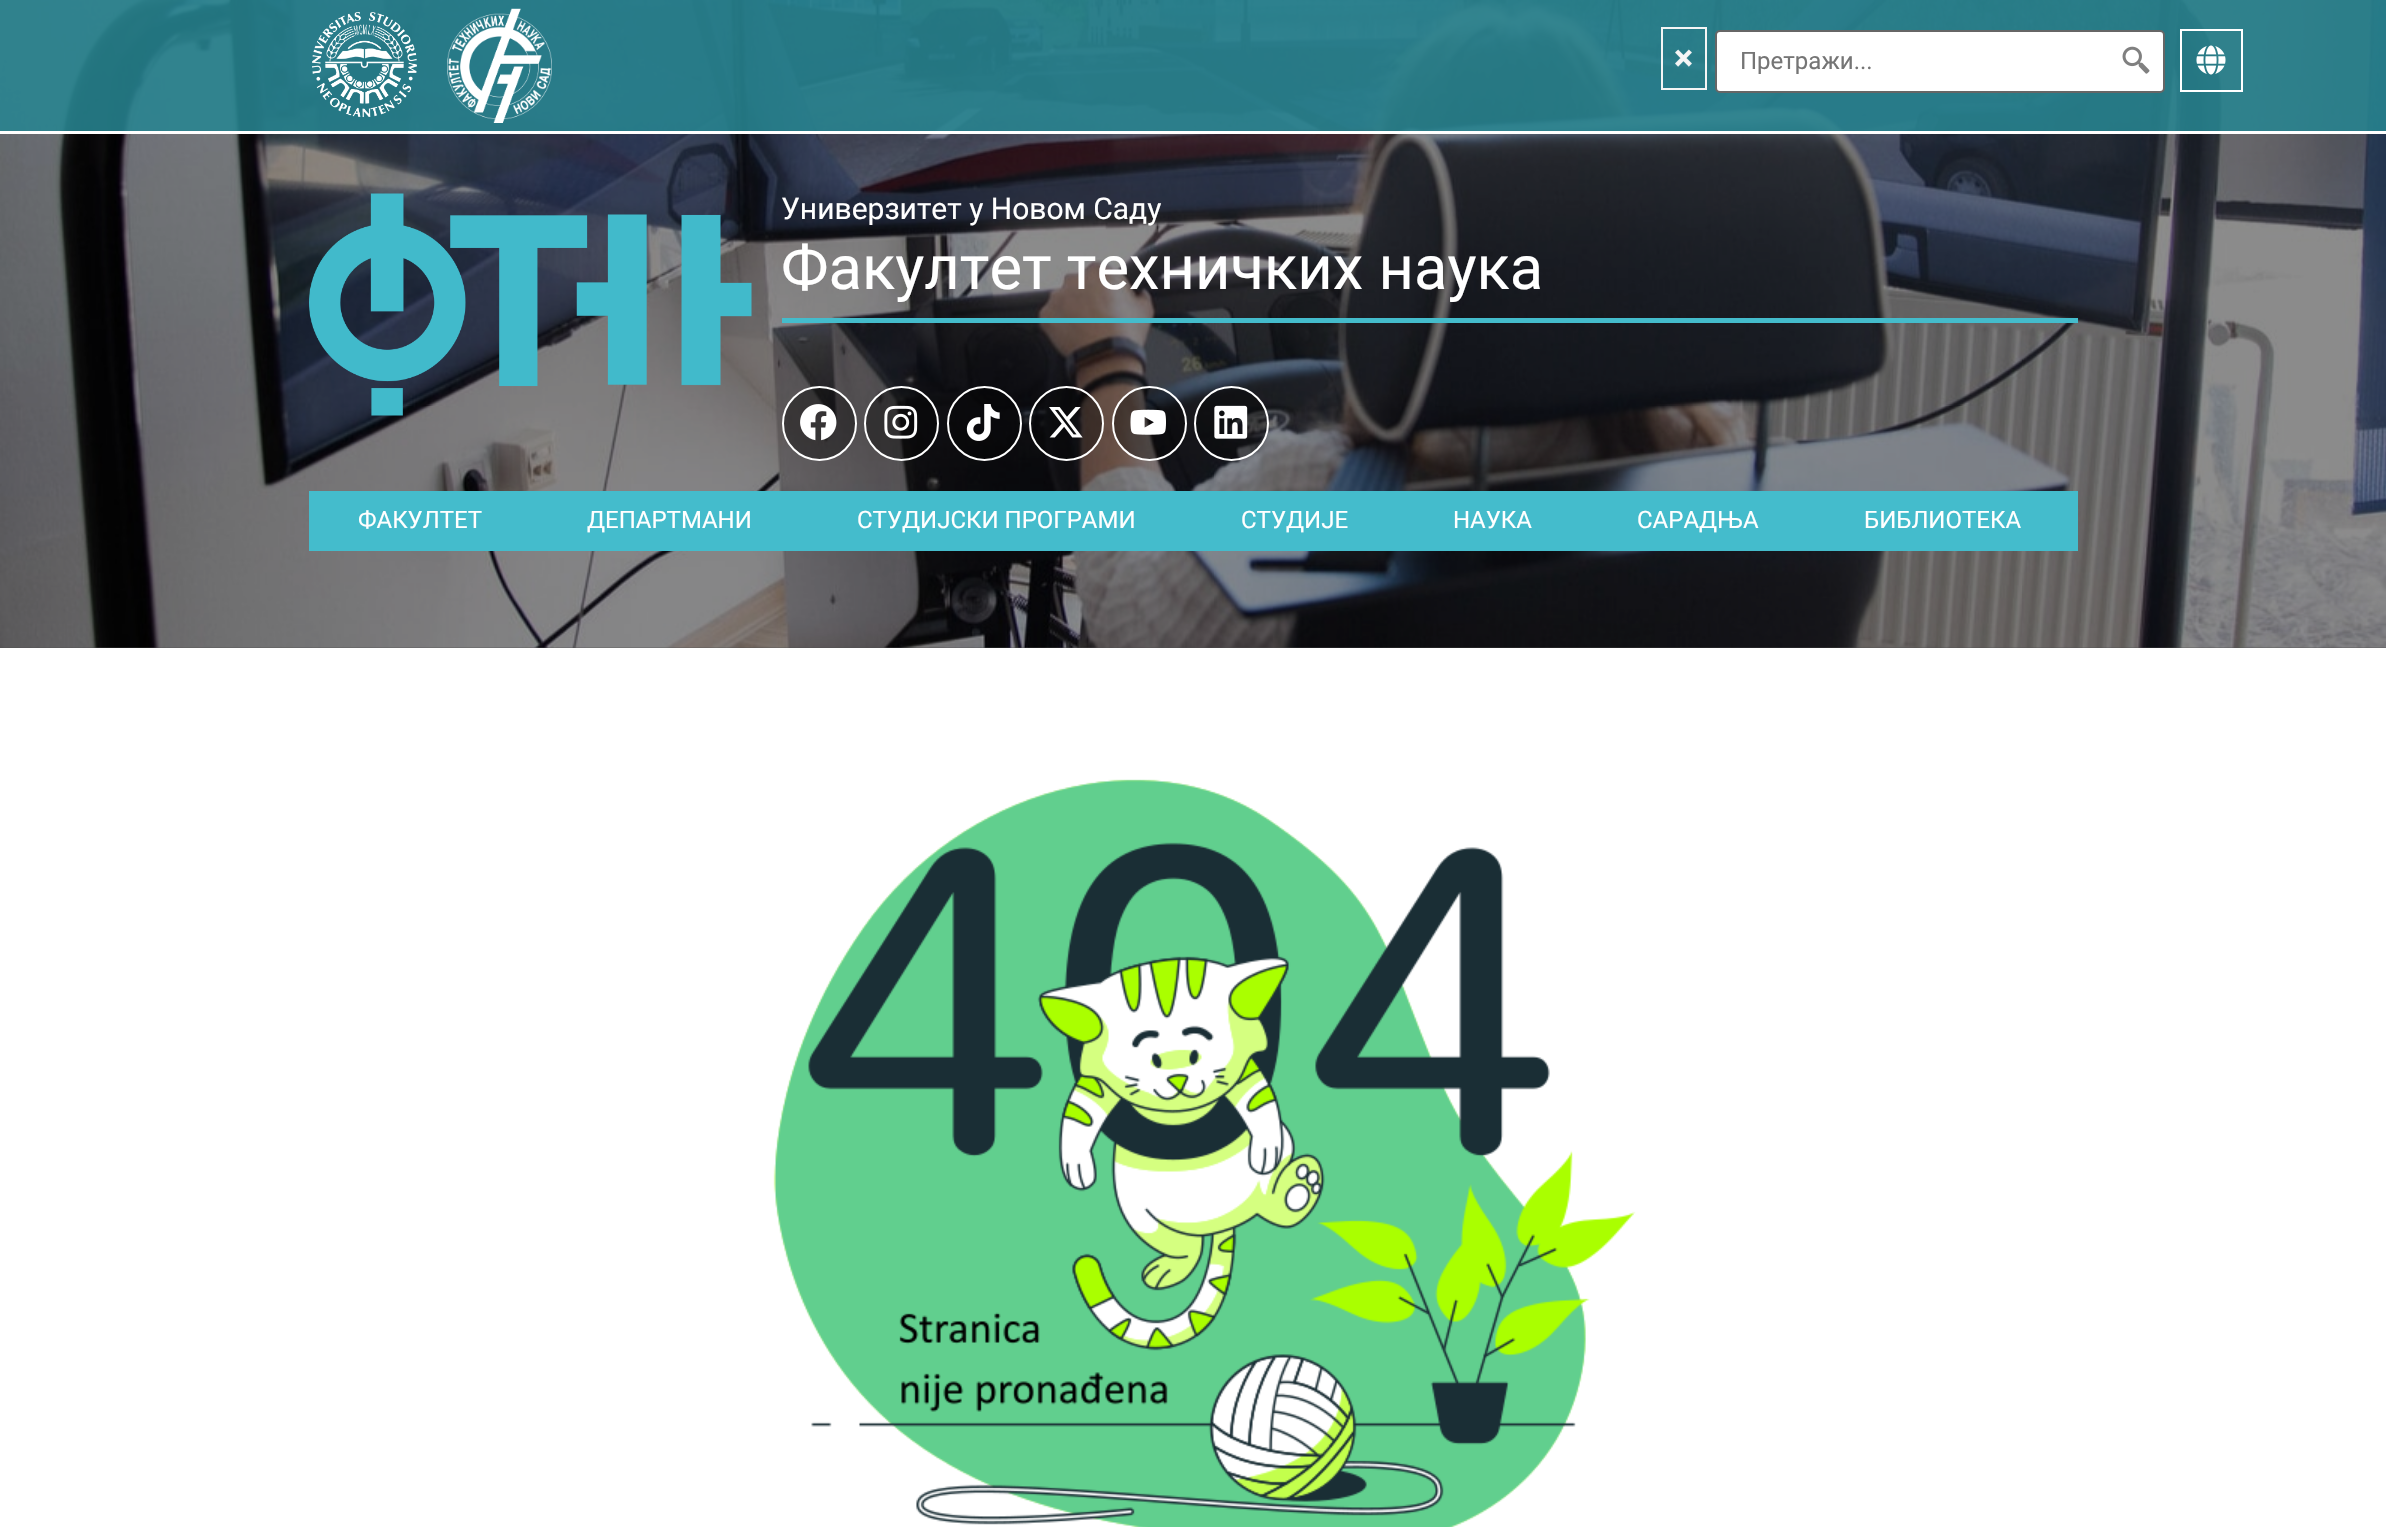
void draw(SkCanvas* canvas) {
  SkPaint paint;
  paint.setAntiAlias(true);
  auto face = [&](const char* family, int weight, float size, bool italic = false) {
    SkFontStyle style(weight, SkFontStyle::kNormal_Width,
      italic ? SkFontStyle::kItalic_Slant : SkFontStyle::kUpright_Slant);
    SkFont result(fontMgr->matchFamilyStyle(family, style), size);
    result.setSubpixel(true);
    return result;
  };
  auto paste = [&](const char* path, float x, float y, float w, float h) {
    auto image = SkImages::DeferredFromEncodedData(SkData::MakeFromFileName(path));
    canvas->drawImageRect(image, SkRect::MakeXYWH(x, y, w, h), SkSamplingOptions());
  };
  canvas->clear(0xffffffff);
  paint.setColor(0xff4d4d4d);
  canvas->drawRect(SkRect::MakeXYWH(0, 647, 2386, 1), paint);
  paste("img/1.png", 0, 0, 2386, 648);
  {
    const struct { float x, y, w, h; SkColor color; } items[] = {
      {0, 0, 2386, 131, 0xba00e1fd},
      {0, 131, 2386, 3, 0xffffffff},
      {0, 0, 2386, 131, 0x80424242},
    };
    for (auto [x, y, w, h, color] : items) {
      paint.setColor(color);
      canvas->drawRect(SkRect::MakeXYWH(x, y, w, h), paint);
    }
  }
  paste("img/2.png", 312, 12, 105, 105);
  paste("img/3.png", 447, 8, 105, 115);
  paint.setStroke(true);
  paint.setStrokeWidth(2);
  paint.setColor(0xfff5f5f5);
  canvas->drawRect(SkRect::MakeXYWH(1662, 28, 44, 61), paint);
  paint.setStroke(false);
  paint.setColor(0xffffffff);
  canvas->drawRoundRect(SkRect::MakeXYWH(1716, 31, 448, 61), 4, 4, paint);
  paint.setStroke(true);
  paint.setColor(0xff666666);
  canvas->drawRoundRect(SkRect::MakeXYWH(1716, 31, 448, 61), 4, 4, paint);
  paste("img/4.png", 2122, 46, 28, 28);
  paint.setColor(0xffffffff);
  canvas->drawRect(SkRect::MakeXYWH(2181, 30, 61, 61), paint);
  paste("img/5.png", 2196, 45, 30, 30);
  paste("img/6.png", 309, 193, 443, 223);
  paint.setStroke(false);
  paint.setColor(0xff44bccc);
  canvas->drawRect(SkRect::MakeXYWH(782, 318, 1296, 5), paint);
  paint.setColor(0x61000000);
  canvas->drawCircle(819.5f, 423.5f, 36.5f, paint);
  paint.setStroke(true);
  paint.setColor(0xffffffff);
  canvas->drawCircle(819.5f, 423.5f, 36.5f, paint);
  paste("img/7.png", 800, 404, 37, 37);
  paint.setStroke(false);
  paint.setColor(0x61000000);
  canvas->drawCircle(901.5f, 423.5f, 36.5f, paint);
  paint.setStroke(true);
  paint.setColor(0xffffffff);
  canvas->drawCircle(901.5f, 423.5f, 36.5f, paint);
  paste("img/8.png", 884, 405, 34, 34);
  paint.setStroke(false);
  paint.setColor(0x61000000);
  canvas->drawCircle(984.5f, 423.5f, 36.5f, paint);
  paint.setStroke(true);
  paint.setColor(0xffffffff);
  canvas->drawCircle(984.5f, 423.5f, 36.5f, paint);
  paste("img/9.png", 966, 404, 34, 37);
  paint.setStroke(false);
  paint.setColor(0x61000000);
  canvas->drawCircle(1066.5f, 423.5f, 36.5f, paint);
  paint.setStroke(true);
  paint.setColor(0xffffffff);
  canvas->drawCircle(1066.5f, 423.5f, 36.5f, paint);
  paste("img/10.png", 1049, 407, 34, 31);
  paint.setStroke(false);
  paint.setColor(0x61000000);
  canvas->drawCircle(1149.5f, 423.5f, 36.5f, paint);
  paint.setStroke(true);
  paint.setColor(0xffffffff);
  canvas->drawCircle(1149.5f, 423.5f, 36.5f, paint);
  paste("img/11.png", 1130, 409, 36, 26);
  paint.setStroke(false);
  paint.setColor(0x61000000);
  canvas->drawCircle(1231.5f, 423.5f, 36.5f, paint);
  paint.setStroke(true);
  paint.setColor(0xffffffff);
  canvas->drawCircle(1231.5f, 423.5f, 36.5f, paint);
  paste("img/12.png", 1214, 405, 34, 34);
  paint.setStroke(false);
  paint.setColor(0xff44bccc);
  canvas->drawRect(SkRect::MakeXYWH(309, 491, 1769, 60), paint);
  paste("img/13.png", 773, 779, 863, 748);
  auto f0 = face("Roboto", 700, 36);
  paint.setColor(0xfff5f5f5);
  canvas->drawString("×", 1674, 70, f0, paint);
  auto f1 = face("Roboto", 400, 24);
  paint.setColor(0xff757575);
  canvas->drawString("Претражи...", 1740, 69, f1, paint);
  auto f2 = face("Roboto", 400, 30);
  paint.setColor(0xffffffff);
  canvas->drawString("Универзитет у Новом Саду", 781, 219, f2, paint);
  auto f3 = face("Roboto", 400, 61.5f);
  canvas->drawString("Факултет техничких наука", 781, 289, f3, paint);
  {
    const struct { const char* s; float x, y; } items[] = {
      {"ФАКУЛТЕТ", 358, 528},
      {"ДЕПАРТМАНИ", 587, 528},
      {"СТУДИЈСКИ ПРОГРАМИ", 857, 528},
      {"СТУДИЈЕ", 1241, 528},
      {"НАУКА", 1453, 528},
      {"САРАДЊА", 1637, 528},
      {"БИБЛИОТЕКА", 1864, 528},
    };
    for (auto [s, x, y] : items) {
      canvas->drawString(s, x, y, f1, paint);
    }
  }
}
